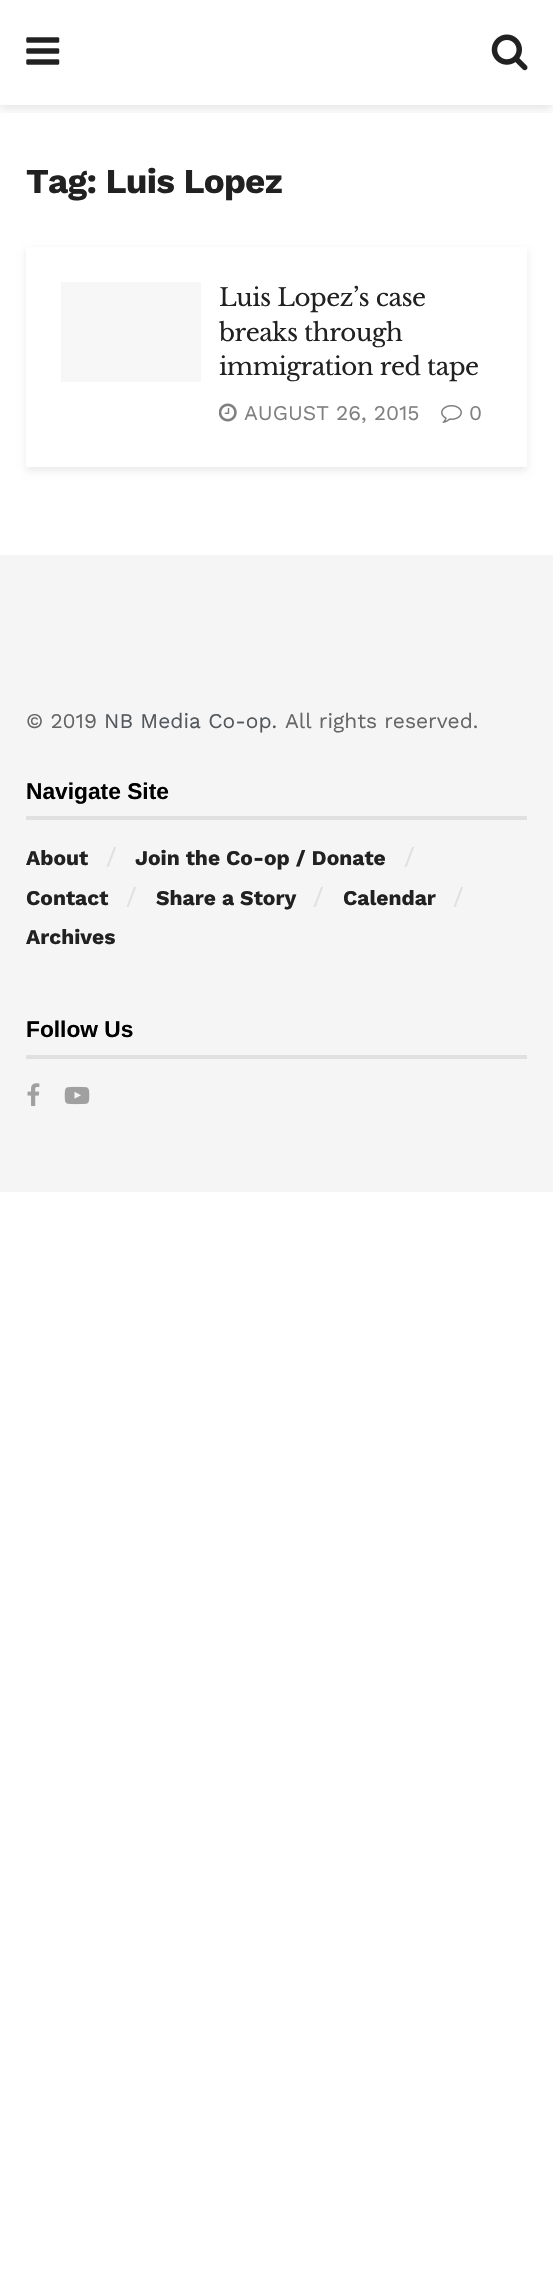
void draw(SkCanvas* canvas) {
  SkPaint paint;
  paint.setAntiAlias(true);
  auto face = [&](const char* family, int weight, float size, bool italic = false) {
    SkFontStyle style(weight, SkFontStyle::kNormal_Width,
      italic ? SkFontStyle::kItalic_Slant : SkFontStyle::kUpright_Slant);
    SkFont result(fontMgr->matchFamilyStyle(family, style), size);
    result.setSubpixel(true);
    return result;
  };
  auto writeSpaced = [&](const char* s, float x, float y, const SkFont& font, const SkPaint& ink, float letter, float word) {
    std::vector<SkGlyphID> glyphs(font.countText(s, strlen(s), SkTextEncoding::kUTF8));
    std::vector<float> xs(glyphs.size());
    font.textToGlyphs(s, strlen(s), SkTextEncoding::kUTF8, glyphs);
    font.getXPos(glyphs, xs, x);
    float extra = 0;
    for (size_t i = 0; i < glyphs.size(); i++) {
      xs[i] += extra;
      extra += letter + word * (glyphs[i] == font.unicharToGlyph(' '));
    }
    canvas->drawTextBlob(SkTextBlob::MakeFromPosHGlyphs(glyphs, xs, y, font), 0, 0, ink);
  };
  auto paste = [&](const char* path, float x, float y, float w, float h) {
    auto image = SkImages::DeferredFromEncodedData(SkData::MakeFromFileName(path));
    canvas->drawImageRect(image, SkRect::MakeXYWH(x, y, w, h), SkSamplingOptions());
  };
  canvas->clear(0xffffffff);
  canvas->save();
  canvas->clipRect(SkRect::MakeXYWH(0, 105, 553, 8));
  paint.setColor(0x1a000000);
  paint.setMaskFilter(SkMaskFilter::MakeBlur(kNormal_SkBlurStyle, 5));
  canvas->drawRect(SkRect::MakeXYWH(0, 4, 553, 105), paint);
  paint.setMaskFilter(nullptr);
  canvas->restore();
  paste("img/1.png", 26, 37, 34, 28);
  paste("img/2.png", 491, 34, 37, 37);
  paint.setColor(0x14000000);
  paint.setMaskFilter(SkMaskFilter::MakeBlur(kNormal_SkBlurStyle, 3.5f));
  canvas->drawRect(SkRect::MakeXYWH(26, 250, 501, 221), paint);
  paint.setMaskFilter(nullptr);
  paint.setColor(0xffffffff);
  canvas->drawRect(SkRect::MakeXYWH(26, 247, 501, 220), paint);
  paint.setColor(0xfff7f7f7);
  canvas->drawRect(SkRect::MakeXYWH(61, 282, 140, 100), paint);
  paste("img/3.png", 219, 403, 18, 19);
  paste("img/4.png", 441, 405, 21, 18);
  {
    const struct { float x, y, w, h; SkColor color; } items[] = {
      {0, 555, 553, 637, 0xfff5f5f5},
      {26, 816, 501, 4, 0xffe0e0e0},
      {26, 1055, 501, 4, 0xffe0e0e0},
    };
    for (auto [x, y, w, h, color] : items) {
      paint.setColor(color);
      canvas->drawRect(SkRect::MakeXYWH(x, y, w, h), paint);
    }
  }
  paste("img/5.png", 27, 1083, 13, 23);
  paste("img/6.png", 64, 1086, 26, 19);
  auto f0 = face("Work Sans", 700, 35);
  paint.setColor(0xff212121);
  writeSpaced("Tag: Luis Lopez", 26, 193, f0, paint, -0.75f, 0);
  auto f1 = face("Libre Baskerville", 400, 24.5f);
  {
    const struct { const char* s; float x, y; } items[] = {
      {"Luis Lopez’s case", 219, 306},
      {"breaks through", 219, 341},
      {"immigration red tape", 219, 375},
    };
    for (auto [s, x, y] : items) {
      writeSpaced(s, x, y, f1, paint, -0.5f, 0);
    }
  }
  auto f2 = face("Work Sans", 400, 21);
  paint.setColor(0xff808080);
  canvas->drawString("AUGUST 26, 2015", 244, 420, f2, paint);
  canvas->drawString("0", 469, 420, f2, paint);
  paint.setColor(0xff666666);
  canvas->drawString("© 2019", 26, 728, f2, paint);
  paint.setColor(0xff53585c);
  canvas->drawString("NB Media Co-op.", 104, 728, f2, paint);
  paint.setColor(0xff666666);
  canvas->drawString("All rights reserved.", 285, 728, f2, paint);
  auto f3 = face("Liberation Sans", 700, 22.75f);
  paint.setColor(0xff000000);
  canvas->drawString("Navigate Site", 26, 799, f3, paint);
  auto f4 = face("Work Sans", 700, 21);
  paint.setColor(0xff212121);
  canvas->drawString("About", 26, 865, f4, paint);
  auto f5 = face("Work Sans", 400, 24.5f);
  paint.setColor(0xffe0e0e0);
  canvas->drawString("/", 106, 865, f5, paint);
  paint.setColor(0xff212121);
  canvas->drawString("Join the Co-op / Donate", 135, 865, f4, paint);
  paint.setColor(0xffe0e0e0);
  canvas->drawString("/", 404, 865, f5, paint);
  paint.setColor(0xff212121);
  canvas->drawString("Contact", 26, 905, f4, paint);
  paint.setColor(0xffe0e0e0);
  canvas->drawString("/", 126, 905, f5, paint);
  paint.setColor(0xff212121);
  canvas->drawString("Share a Story", 156, 905, f4, paint);
  paint.setColor(0xffe0e0e0);
  canvas->drawString("/", 313, 905, f5, paint);
  paint.setColor(0xff212121);
  canvas->drawString("Calendar", 343, 905, f4, paint);
  paint.setColor(0xffe0e0e0);
  canvas->drawString("/", 453, 905, f5, paint);
  paint.setColor(0xff212121);
  canvas->drawString("Archives", 26, 944, f4, paint);
  paint.setColor(0xff000000);
  canvas->drawString("Follow Us", 26, 1037, f3, paint);
}
